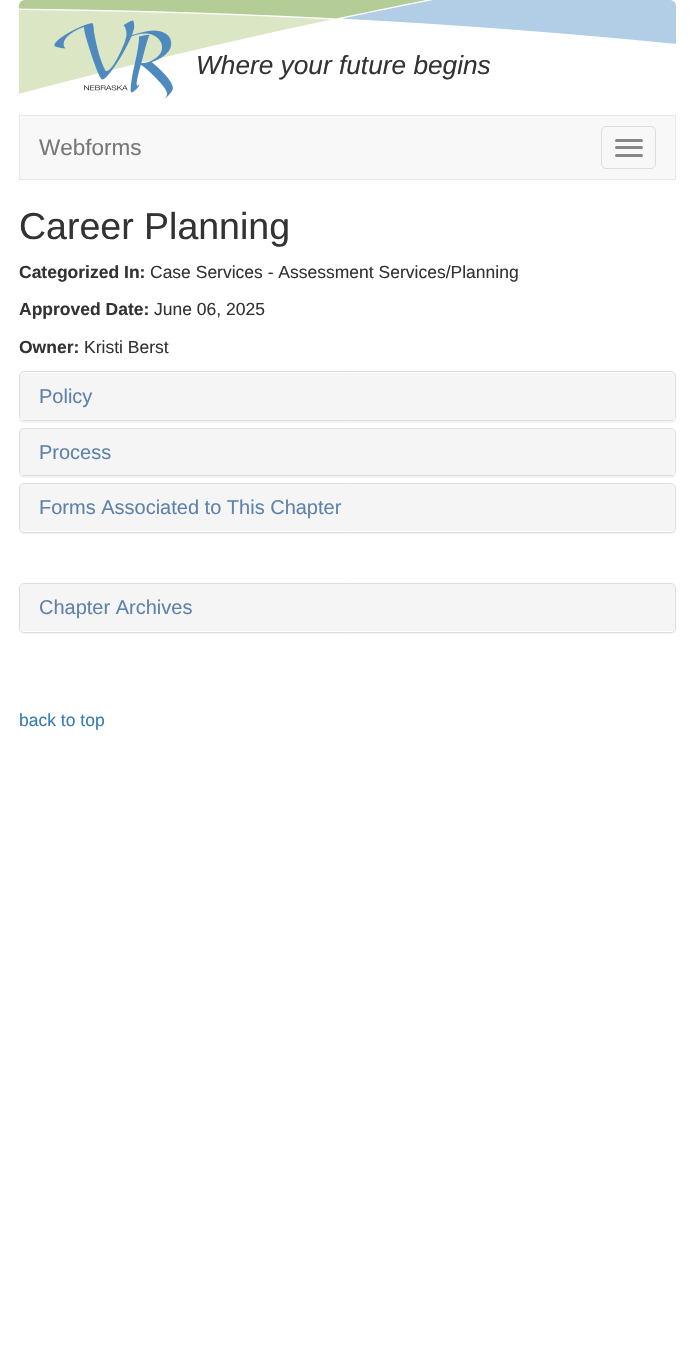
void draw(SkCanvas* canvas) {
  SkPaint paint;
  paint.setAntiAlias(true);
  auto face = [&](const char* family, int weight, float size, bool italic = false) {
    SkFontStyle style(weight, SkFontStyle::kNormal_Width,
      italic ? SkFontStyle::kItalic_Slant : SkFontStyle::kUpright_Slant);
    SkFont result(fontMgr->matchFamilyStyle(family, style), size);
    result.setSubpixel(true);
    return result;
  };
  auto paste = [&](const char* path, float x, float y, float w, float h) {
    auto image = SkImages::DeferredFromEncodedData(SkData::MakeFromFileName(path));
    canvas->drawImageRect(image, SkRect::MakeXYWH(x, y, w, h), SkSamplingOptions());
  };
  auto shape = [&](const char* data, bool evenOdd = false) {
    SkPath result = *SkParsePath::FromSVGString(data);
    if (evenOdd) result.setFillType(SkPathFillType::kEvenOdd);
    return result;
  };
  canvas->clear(0xffffffff);
  paste("img/1.png", 19, 0, 657, 94);
  paste("img/2.png", 54, 20, 119, 80);
  paint.setColor(0xfff8f8f8);
  canvas->drawRect(SkRect::MakeXYWH(19.5f, 115.5f, 656, 64), paint);
  paint.setStroke(true);
  paint.setStrokeWidth(1);
  paint.setColor(0xffe7e7e7);
  canvas->drawRect(SkRect::MakeXYWH(19.5f, 115.5f, 656, 64), paint);
  paint.setColor(0xffdddddd);
  canvas->drawRoundRect(SkRect::MakeXYWH(601.5f, 126.5f, 54, 42), 4.5f, 4.5f, paint);
  paint.setStroke(false);
  paint.setColor(0xff888888);
  canvas->drawRoundRect(SkRect::MakeXYWH(615, 139, 28, 3), 1.5f, 1.5f, paint);
  canvas->drawRoundRect(SkRect::MakeXYWH(615, 146, 28, 3), 1.5f, 1.5f, paint);
  canvas->drawRoundRect(SkRect::MakeXYWH(615, 154, 28, 3), 1.5f, 1.5f, paint);
  paint.setColor(0x0d000000);
  paint.setMaskFilter(SkMaskFilter::MakeBlur(kNormal_SkBlurStyle, 0.5f));
  canvas->drawRoundRect(SkRect::MakeXYWH(19, 373, 657, 50), 5, 5, paint);
  paint.setMaskFilter(nullptr);
  paint.setStroke(true);
  paint.setColor(0xffdddddd);
  canvas->drawRoundRect(SkRect::MakeXYWH(19.5f, 371.5f, 656, 49), 4.5f, 4.5f, paint);
  paint.setStroke(false);
  paint.setColor(0xfff5f5f5);
  canvas->drawPath(shape("M24 373H671C673 373 675 375 675 377V420H20V377C20 375 22 373 24 373Z"), paint);
  paint.setColor(0x0d000000);
  paint.setMaskFilter(SkMaskFilter::MakeBlur(kNormal_SkBlurStyle, 0.5f));
  canvas->drawRoundRect(SkRect::MakeXYWH(19, 429, 657, 49), 5, 5, paint);
  paint.setMaskFilter(nullptr);
  paint.setStroke(true);
  paint.setColor(0xffdddddd);
  canvas->drawRoundRect(SkRect::MakeXYWH(19.5f, 428.5f, 656, 47), 4.5f, 4.5f, paint);
  paint.setStroke(false);
  paint.setColor(0xfff5f5f5);
  canvas->drawPath(shape("M24 429H671C673 429 675 431 675 433V475H20V433C20 431 22 429 24 429Z"), paint);
  paint.setColor(0x0d000000);
  paint.setMaskFilter(SkMaskFilter::MakeBlur(kNormal_SkBlurStyle, 0.5f));
  canvas->drawRoundRect(SkRect::MakeXYWH(19, 484, 657, 50), 5, 5, paint);
  paint.setMaskFilter(nullptr);
  paint.setColor(0xffffffff);
  canvas->drawRoundRect(SkRect::MakeXYWH(19.5f, 483.5f, 656, 49), 4.5f, 4.5f, paint);
  paint.setStroke(true);
  paint.setColor(0xffdddddd);
  canvas->drawRoundRect(SkRect::MakeXYWH(19.5f, 483.5f, 656, 49), 4.5f, 4.5f, paint);
  paint.setStroke(false);
  paint.setColor(0xfff5f5f5);
  canvas->drawPath(shape("M24 484H671C673 484 675 486 675 488V531H20V488C20 486 22 484 24 484Z"), paint);
  paint.setColor(0x0d000000);
  paint.setMaskFilter(SkMaskFilter::MakeBlur(kNormal_SkBlurStyle, 0.5f));
  canvas->drawRoundRect(SkRect::MakeXYWH(19, 584, 657, 50), 5, 5, paint);
  paint.setMaskFilter(nullptr);
  paint.setColor(0xffffffff);
  canvas->drawRoundRect(SkRect::MakeXYWH(19.5f, 583.5f, 656, 49), 4.5f, 4.5f, paint);
  paint.setStroke(true);
  paint.setColor(0xffdddddd);
  canvas->drawRoundRect(SkRect::MakeXYWH(19.5f, 583.5f, 656, 49), 4.5f, 4.5f, paint);
  paint.setStroke(false);
  paint.setColor(0xfff5f5f5);
  canvas->drawPath(shape("M24 584H671C673 584 675 586 675 588V631H20V588C20 586 22 584 24 584Z"), paint);
  auto f0 = face("Liberation Sans", 400, 26.25f, true);
  paint.setColor(0xff333333);
  canvas->drawString("Where your future begins", 196, 74, f0, paint);
  auto f1 = face("Liberation Sans", 400, 22.5f);
  paint.setColor(0xff777777);
  canvas->drawString("Webforms", 39, 155, f1, paint);
  auto f2 = face("Liberation Sans", 400, 37.5f);
  paint.setColor(0xff333333);
  canvas->drawString("Career Planning", 19, 239, f2, paint);
  auto f3 = face("Liberation Sans", 700, 17.5f);
  canvas->drawString("Categorized In:", 19, 278, f3, paint);
  auto f4 = face("Liberation Sans", 400, 17.5f);
  canvas->drawString("Case Services - Assessment Services/Planning", 150, 278, f4, paint);
  canvas->drawString("Approved Date:", 19, 315, f3, paint);
  canvas->drawString("June 06, 2025", 154, 315, f4, paint);
  canvas->drawString("Owner:", 19, 353, f3, paint);
  canvas->drawString("Kristi Berst", 84, 353, f4, paint);
  auto f5 = face("Liberation Sans", 400, 20);
  paint.setColor(0xff5e82ab);
  {
    const struct { const char* s; float x, y; } items[] = {
      {"Policy", 39, 403},
      {"Process", 39, 459},
      {"Forms Associated to This Chapter", 39, 514},
      {"Chapter Archives", 39, 614},
    };
    for (auto [s, x, y] : items) {
      canvas->drawString(s, x, y, f5, paint);
    }
  }
  paint.setColor(0xff337ab7);
  canvas->drawString("back to top", 19, 726, f4, paint);
}
